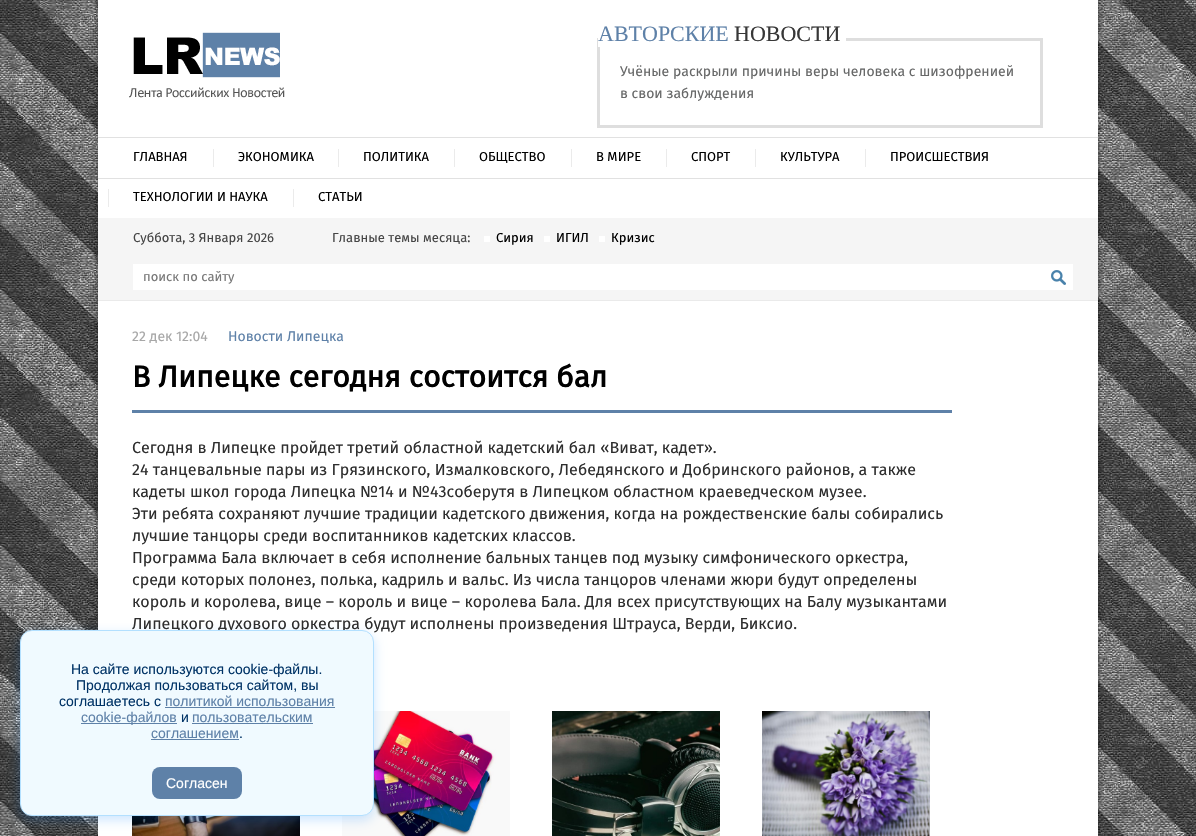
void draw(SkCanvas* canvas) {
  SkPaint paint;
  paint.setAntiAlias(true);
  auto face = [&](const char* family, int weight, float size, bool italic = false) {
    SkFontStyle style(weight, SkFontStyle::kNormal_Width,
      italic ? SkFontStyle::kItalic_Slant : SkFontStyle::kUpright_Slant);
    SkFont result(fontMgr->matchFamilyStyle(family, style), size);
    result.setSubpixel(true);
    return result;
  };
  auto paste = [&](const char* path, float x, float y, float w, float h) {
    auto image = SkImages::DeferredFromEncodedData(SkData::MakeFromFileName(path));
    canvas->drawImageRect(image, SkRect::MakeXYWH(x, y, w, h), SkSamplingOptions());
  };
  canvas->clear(0xffffffff);
  paste("img/1.png", 0, 0, 1196, 836);
  paint.setColor(0x6b000000);
  paint.setMaskFilter(SkMaskFilter::MakeBlur(kNormal_SkBlurStyle, 2.5f));
  canvas->drawRect(SkRect::MakeXYWH(98, 0, 1000, 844), paint);
  paint.setMaskFilter(nullptr);
  paint.setColor(0xffffffff);
  canvas->drawRect(SkRect::MakeXYWH(98, 0, 1000, 836), paint);
  paint.setColor(0xffe1e1e1);
  canvas->drawRect(SkRect::MakeXYWH(98, 137, 1000, 1), paint);
  paste("img/2.png", 129, 32, 156, 66);
  paint.setStroke(true);
  paint.setStrokeWidth(3);
  paint.setColor(0xffdedede);
  canvas->drawRect(SkRect::MakeXYWH(598.5f, 39.5f, 443, 87), paint);
  paint.setStroke(false);
  {
    const struct { float x, y, w, h; SkColor color; } items[] = {
      {598, 38, 248, 9, 0xffffffff},
      {98, 178, 1000, 1, 0xffe1e1e1},
      {213, 149, 1, 18, 0xffebebeb},
      {338, 149, 1, 18, 0xffebebeb},
      {454, 149, 1, 18, 0xffebebeb},
      {571, 149, 1, 18, 0xffebebeb},
      {666, 149, 1, 18, 0xffebebeb},
      {755, 149, 1, 18, 0xffebebeb},
      {865, 149, 1, 18, 0xffebebeb},
      {108, 189, 1, 18, 0xffebebeb},
      {293, 189, 1, 18, 0xffebebeb},
      {98, 218, 1000, 82, 0xfff5f5f5},
      {98, 300, 1000, 1, 0xffeaeaea},
      {484, 236, 6, 6, 0xffffffff},
      {544, 236, 6, 6, 0xffffffff},
      {599, 236, 6, 6, 0xffffffff},
      {133, 264, 940, 26, 0xffffffff},
    };
    for (auto [x, y, w, h, color] : items) {
      paint.setColor(color);
      canvas->drawRect(SkRect::MakeXYWH(x, y, w, h), paint);
    }
  }
  paste("img/3.png", 1051, 270, 15, 15);
  paint.setColor(0xff5e81a8);
  canvas->drawRect(SkRect::MakeXYWH(132, 410, 820, 3), paint);
  paste("img/4.png", 132, 816, 168, 20);
  paste("img/5.png", 342, 711, 168, 125);
  paste("img/6.png", 552, 711, 168, 125);
  paste("img/7.png", 762, 711, 168, 125);
  paint.setColor(0x33007bff);
  paint.setMaskFilter(SkMaskFilter::MakeBlur(kNormal_SkBlurStyle, 6));
  canvas->drawRoundRect(SkRect::MakeXYWH(20, 634, 354, 186), 12, 12, paint);
  paint.setMaskFilter(nullptr);
  auto f0 = face("Liberation Serif", 400, 22);
  paint.setColor(0xff5e81a8);
  canvas->drawString("АВТОРСКИЕ", 598, 41, f0, paint);
  paint.setColor(0xff373737);
  canvas->drawString("НОВОСТИ", 734, 41, f0, paint);
  auto f1 = face("Fira Sans", 400, 14);
  paint.setColor(0xff676868);
  canvas->drawString("Учёные раскрыли причины веры человека с шизофренией", 620, 76, f1, paint);
  canvas->drawString("в свои заблуждения", 620, 98, f1, paint);
  auto f2 = face("Fira Sans", 400, 13);
  paint.setColor(0xff000000);
  {
    const struct { const char* s; float x, y; } items[] = {
      {"ГЛАВНАЯ", 133, 161},
      {"ЭКОНОМИКА", 238, 161},
      {"ПОЛИТИКА", 363, 161},
      {"ОБЩЕСТВО", 479, 161},
      {"В МИРЕ", 596, 161},
      {"СПОРТ", 691, 161},
      {"КУЛЬТУРА", 780, 161},
      {"ПРОИСШЕСТВИЯ", 890, 161},
      {"ТЕХНОЛОГИИ И НАУКА", 133, 201},
      {"СТАТЬИ", 318, 201},
    };
    for (auto [s, x, y] : items) {
      canvas->drawString(s, x, y, f2, paint);
    }
  }
  paint.setColor(0xff454545);
  canvas->drawString("Суббота, 3 Января 2026", 133, 242, f2, paint);
  canvas->drawString("Главные темы месяца:", 332, 242, f2, paint);
  paint.setColor(0xff000000);
  {
    const struct { const char* s; float x, y; } items[] = {
      {"Сирия", 496, 242},
      {"ИГИЛ", 556, 242},
      {"Кризис", 611, 242},
    };
    for (auto [s, x, y] : items) {
      canvas->drawString(s, x, y, f2, paint);
    }
  }
  paint.setColor(0xff787878);
  canvas->drawString("поиск по сайту", 143, 281, f2, paint);
  paint.setColor(0xffa7a7a7);
  canvas->drawString("22 дек 12:04", 132, 341, f1, paint);
  paint.setColor(0xff5e81a8);
  canvas->drawString("Новости Липецка", 228, 341, f1, paint);
  auto f3 = face("Fira Sans", 700, 30);
  paint.setColor(0xff000000);
  canvas->drawString("В Липецке сегодня состоится бал", 132, 387, f3, paint);
  auto f4 = face("Fira Sans", 400, 16);
  paint.setColor(0xff2e2e2e);
  {
    const struct { const char* s; float x, y; } items[] = {
      {"Сегодня в Липецке пройдет третий областной кадетский бал «Виват, кадет».", 132, 453},
      {"24 танцевальные пары из Грязинского, Измалковского, Лебедянского и Добринского районов, а также", 132, 475},
      {"кадеты школ города Липецка №14 и №43соберутя в Липецком областном краеведческом музее.", 132, 497},
      {"Эти ребята сохраняют лучшие традиции кадетского движения, когда на рождественские балы собирались", 132, 519},
      {"лучшие танцоры среди воспитанников кадетских классов.", 132, 541},
      {"Программа Бала включает в себя исполнение бальных танцев под музыку симфонического оркестра,", 132, 563},
      {"среди которых полонез, полька, кадриль и вальс. Из числа танцоров членами жюри будут определены", 132, 585},
      {"король и королева, вице – король и вице – королева Бала. Для всех присутствующих на Балу музыкантами", 132, 607},
      {"Липецкого духового оркестра будут исполнены произведения Штрауса, Верди, Биксио.", 132, 629},
    };
    for (auto [s, x, y] : items) {
      canvas->drawString(s, x, y, f4, paint);
    }
  }
  paint.setColor(0xfff0faff);
  canvas->drawRoundRect(SkRect::MakeXYWH(20.5f, 630.5f, 353, 185), 11.5f, 11.5f, paint);
  paint.setStroke(true);
  paint.setStrokeWidth(1);
  paint.setColor(0xffb3e0ff);
  canvas->drawRoundRect(SkRect::MakeXYWH(20.5f, 630.5f, 353, 185), 11.5f, 11.5f, paint);
  auto f5 = face("Liberation Sans", 400, 14);
  paint.setStroke(false);
  paint.setColor(0xff003366);
  {
    const struct { const char* s; float x, y; } items[] = {
      {"На сайте используются cookie-файлы.", 71, 674},
      {"Продолжая пользоваться сайтом, вы", 76, 690},
      {"соглашаетесь с", 59, 706},
    };
    for (auto [s, x, y] : items) {
      canvas->drawString(s, x, y, f5, paint);
    }
  }
  paint.setColor(0xff5e81a8);
  canvas->drawString("политикой использования", 165, 706, f5, paint);
  canvas->drawRect(SkRect::MakeXYWH(165, 707, 170, 1), paint);
  canvas->drawRect(SkRect::MakeXYWH(81, 723, 96, 1), paint);
  canvas->drawString("cookie-файлов", 81, 722, f5, paint);
  paint.setColor(0xff003366);
  canvas->drawString("и", 181, 722, f5, paint);
  paint.setColor(0xff5e81a8);
  canvas->drawString("пользовательским", 192, 722, f5, paint);
  canvas->drawRect(SkRect::MakeXYWH(192, 723, 121, 1), paint);
  canvas->drawString("соглашением", 151, 738, f5, paint);
  canvas->drawRect(SkRect::MakeXYWH(151, 739, 88, 1), paint);
  paint.setColor(0xff003366);
  canvas->drawString(".", 239, 738, f5, paint);
  paint.setColor(0xff5e81a8);
  canvas->drawRoundRect(SkRect::MakeXYWH(152, 767, 90, 32), 8, 8, paint);
  paint.setColor(0xffffffff);
  canvas->drawString("Согласен", 166, 788, f5, paint);
}
